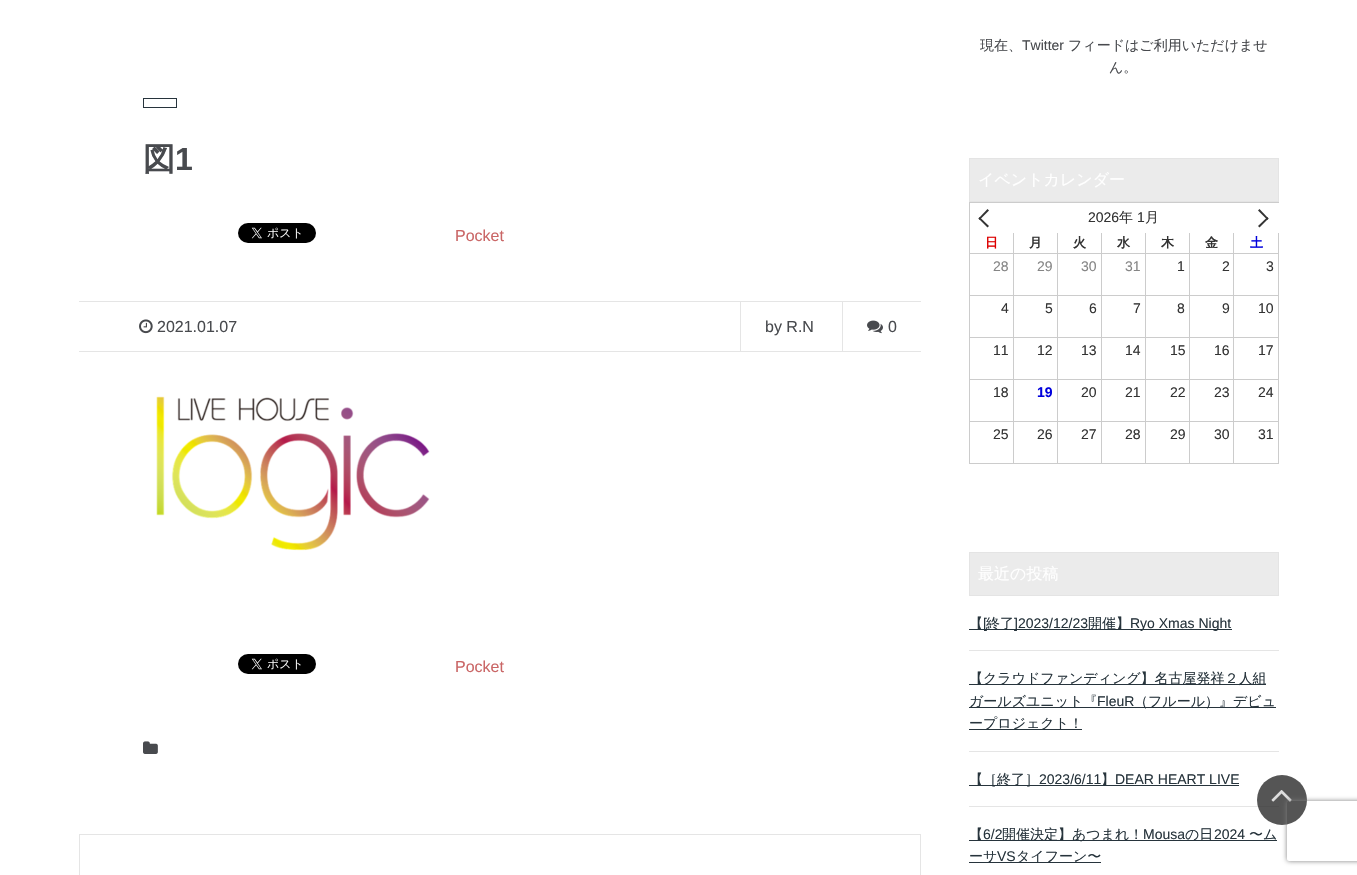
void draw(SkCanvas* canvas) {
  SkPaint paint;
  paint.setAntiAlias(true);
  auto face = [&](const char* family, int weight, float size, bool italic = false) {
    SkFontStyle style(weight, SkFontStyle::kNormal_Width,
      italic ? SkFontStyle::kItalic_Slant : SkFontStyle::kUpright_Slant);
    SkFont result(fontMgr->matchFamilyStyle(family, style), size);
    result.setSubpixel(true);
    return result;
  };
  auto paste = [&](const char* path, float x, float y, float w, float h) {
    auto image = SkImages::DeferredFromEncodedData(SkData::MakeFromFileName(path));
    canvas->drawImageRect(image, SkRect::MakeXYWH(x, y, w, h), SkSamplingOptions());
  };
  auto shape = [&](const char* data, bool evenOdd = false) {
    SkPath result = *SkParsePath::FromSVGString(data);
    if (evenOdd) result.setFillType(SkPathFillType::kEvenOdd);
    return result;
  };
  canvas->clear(0xffffffff);
  paint.setColor(0xffe5e5e5);
  canvas->drawRect(SkRect::MakeXYWH(79, 301, 842, 1), paint);
  paint.setStroke(true);
  paint.setStrokeWidth(1);
  paint.setColor(0xff27343c);
  canvas->drawRect(SkRect::MakeXYWH(143.5f, 98.5f, 33, 9), paint);
  paste("img/1.png", 238, 223, 78, 20);
  paint.setStroke(false);
  paint.setColor(0xffe5e5e5);
  canvas->drawRect(SkRect::MakeXYWH(79, 351, 842, 1), paint);
  paste("img/2.png", 139, 319, 14, 15);
  canvas->drawRect(SkRect::MakeXYWH(740, 302, 1, 49), paint);
  canvas->drawRect(SkRect::MakeXYWH(842, 302, 1, 49), paint);
  paste("img/3.png", 867, 320, 16, 14);
  paste("img/4.png", 156, 396, 274, 155);
  paste("img/5.png", 238, 654, 78, 20);
  paste("img/6.png", 143, 741, 15, 13);
  paint.setStroke(true);
  canvas->drawRect(SkRect::MakeXYWH(79.5f, 834.5f, 841, 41), paint);
  paint.setStroke(false);
  paint.setColor(0xffebebeb);
  canvas->drawRect(SkRect::MakeXYWH(969.5f, 158.5f, 309, 43), paint);
  paint.setStroke(true);
  paint.setColor(0xffe4e4e4);
  canvas->drawRect(SkRect::MakeXYWH(969.5f, 158.5f, 309, 43), paint);
  paint.setStroke(false);
  {
    const struct { float x, y, w, h; SkColor color; } items[] = {
      {969, 202, 310, 1, 0xffcccccc},
      {969, 463, 310, 1, 0xffcccccc},
      {969, 202, 1, 262, 0xffcccccc},
    };
    for (auto [x, y, w, h, color] : items) {
      paint.setColor(color);
      canvas->drawRect(SkRect::MakeXYWH(x, y, w, h), paint);
    }
  }
  paint.setColor(0xff333333);
  canvas->drawPath(shape("M979.5 217L989 226L987.5 227.5L978.5 218.5Z"), paint);
  canvas->drawPath(shape("M987.5 209L989 210.5L979.5 220L978.5 218.5Z"), paint);
  canvas->drawPath(shape("M1259.5 209L1268.5 218.5L1267.5 220L1258 210.5Z"), paint);
  canvas->drawPath(shape("M1267.5 217L1268.5 218.5L1259.5 227.5L1258 226Z"), paint);
  {
    const struct { float x, y, w, h; SkColor color; } items[] = {
      {1013, 233, 1, 20, 0xffcccccc},
      {1057, 233, 1, 20, 0xffcccccc},
      {1101, 233, 1, 20, 0xffcccccc},
      {1145, 233, 1, 20, 0xffcccccc},
      {1189, 233, 1, 20, 0xffcccccc},
      {1233, 233, 1, 20, 0xffcccccc},
      {1278, 233, 1, 20, 0xffcccccc},
      {970, 253, 309, 1, 0xffcccccc},
      {1013, 253, 1, 42, 0xffcccccc},
      {1057, 253, 1, 42, 0xffcccccc},
      {1101, 253, 1, 42, 0xffcccccc},
      {1145, 253, 1, 42, 0xffcccccc},
      {1189, 253, 1, 42, 0xffcccccc},
      {1233, 253, 1, 42, 0xffcccccc},
      {1278, 253, 1, 42, 0xffcccccc},
      {970, 295, 309, 1, 0xffcccccc},
      {1013, 295, 1, 42, 0xffcccccc},
      {1057, 295, 1, 42, 0xffcccccc},
      {1101, 295, 1, 42, 0xffcccccc},
      {1145, 295, 1, 42, 0xffcccccc},
      {1189, 295, 1, 42, 0xffcccccc},
      {1233, 295, 1, 42, 0xffcccccc},
      {1278, 295, 1, 42, 0xffcccccc},
      {970, 337, 309, 1, 0xffcccccc},
      {1013, 337, 1, 42, 0xffcccccc},
      {1057, 337, 1, 42, 0xffcccccc},
      {1101, 337, 1, 42, 0xffcccccc},
      {1145, 337, 1, 42, 0xffcccccc},
      {1189, 337, 1, 42, 0xffcccccc},
      {1233, 337, 1, 42, 0xffcccccc},
      {1278, 337, 1, 42, 0xffcccccc},
      {970, 379, 309, 1, 0xffcccccc},
      {1013, 379, 1, 42, 0xffcccccc},
      {1057, 379, 1, 42, 0xffcccccc},
      {1101, 379, 1, 42, 0xffcccccc},
      {1145, 379, 1, 42, 0xffcccccc},
      {1189, 379, 1, 42, 0xffcccccc},
      {1233, 379, 1, 42, 0xffcccccc},
      {1278, 379, 1, 42, 0xffcccccc},
      {970, 421, 309, 1, 0xffcccccc},
      {1013, 421, 1, 42, 0xffcccccc},
      {1057, 421, 1, 42, 0xffcccccc},
      {1101, 421, 1, 42, 0xffcccccc},
      {1145, 421, 1, 42, 0xffcccccc},
      {1189, 421, 1, 42, 0xffcccccc},
      {1233, 421, 1, 42, 0xffcccccc},
      {1278, 421, 1, 42, 0xffcccccc},
    };
    for (auto [x, y, w, h, color] : items) {
      paint.setColor(color);
      canvas->drawRect(SkRect::MakeXYWH(x, y, w, h), paint);
    }
  }
  paint.setColor(0xffebebeb);
  canvas->drawRect(SkRect::MakeXYWH(969.5f, 552.5f, 309, 43), paint);
  paint.setStroke(true);
  paint.setColor(0xffe4e4e4);
  canvas->drawRect(SkRect::MakeXYWH(969.5f, 552.5f, 309, 43), paint);
  paint.setStroke(false);
  {
    const struct { float x, y, w, h; SkColor color; } items[] = {
      {969, 650, 310, 1, 0xffe5e5e5},
      {969, 629, 263, 1, 0xff27343c},
      {969, 751, 310, 1, 0xffe5e5e5},
      {969, 684, 297, 1, 0xff27343c},
      {969, 707, 307, 1, 0xff27343c},
      {969, 729, 113, 1, 0xff27343c},
      {969, 806, 310, 1, 0xffe5e5e5},
      {969, 785, 270, 1, 0xff27343c},
      {969, 840, 308, 1, 0xff27343c},
      {969, 862, 132, 1, 0xff27343c},
    };
    for (auto [x, y, w, h, color] : items) {
      paint.setColor(color);
      canvas->drawRect(SkRect::MakeXYWH(x, y, w, h), paint);
    }
  }
  paint.setColor(0xcc2b2b2b);
  canvas->drawCircle(1282, 800, 25, paint);
  paste("img/7.png", 1271, 790, 21, 12);
  canvas->save();
  canvas->clipPath(shape("M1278 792H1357V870H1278ZM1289 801H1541C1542 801 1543 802 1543 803V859C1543 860 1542 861 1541 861H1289C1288 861 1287 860 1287 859V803C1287 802 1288 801 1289 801Z", true), true);
  paint.setColor(0xff808080);
  paint.setMaskFilter(SkMaskFilter::MakeBlur(kNormal_SkBlurStyle, 2.5f));
  canvas->drawRoundRect(SkRect::MakeXYWH(1287, 801, 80, 60), 2, 2, paint);
  paint.setMaskFilter(nullptr);
  canvas->restore();
  auto f0 = face("WenQuanYi Zen Hei", 700, 32);
  paint.setColor(0xff484a4e);
  canvas->drawString("図", 143, 170, f0, paint);
  auto f1 = face("Liberation Sans", 700, 32);
  canvas->drawString("1", 175, 170, f1, paint);
  auto f2 = face("Liberation Sans", 400, 16);
  paint.setColor(0xffca6666);
  canvas->drawString("Pocket", 455, 241, f2, paint);
  paint.setColor(0xff484a4e);
  {
    const struct { const char* s; float x, y; } items[] = {
      {"2021.01.07", 157, 332},
      {"by R.N", 765, 332},
      {"0", 888, 332},
    };
    for (auto [s, x, y] : items) {
      canvas->drawString(s, x, y, f2, paint);
    }
  }
  paint.setColor(0xffca6666);
  canvas->drawString("Pocket", 455, 672, f2, paint);
  auto f3 = face("WenQuanYi Zen Hei", 500, 14);
  paint.setColor(0xff484a4e);
  canvas->drawString("現在、", 980, 50, f3, paint);
  auto f4 = face("Liberation Sans", 400, 14);
  canvas->drawString("Twitter", 1022, 50, f4, paint);
  canvas->drawString("フィードはご利用いただけませ", 1068, 50, f3, paint);
  canvas->drawString("ん。", 1109, 72, f3, paint);
  auto f5 = face("WenQuanYi Zen Hei", 500, 16);
  paint.setColor(0xffffffff);
  canvas->drawString("イベントカレンダー", 978, 185, f5, paint);
  paint.setColor(0xff333333);
  canvas->drawString("2026", 1088, 222, f4, paint);
  canvas->drawString("年", 1119, 222, f3, paint);
  canvas->drawString("1", 1137, 222, f4, paint);
  canvas->drawString("月", 1145, 222, f3, paint);
  auto f6 = face("WenQuanYi Zen Hei", 700, 13);
  paint.setColor(0xffdd0000);
  canvas->drawString("日", 985, 247, f6, paint);
  paint.setColor(0xff333333);
  {
    const struct { const char* s; float x, y; } items[] = {
      {"月", 1029, 247},
      {"火", 1073, 247},
      {"水", 1117, 247},
      {"木", 1161, 247},
      {"金", 1205, 247},
    };
    for (auto [s, x, y] : items) {
      canvas->drawString(s, x, y, f6, paint);
    }
  }
  paint.setColor(0xff0000dd);
  canvas->drawString("土", 1250, 247, f6, paint);
  paint.setColor(0xff858585);
  {
    const struct { const char* s; float x, y; } items[] = {
      {"28", 993, 271},
      {"29", 1037, 271},
      {"30", 1081, 271},
      {"31", 1125, 271},
    };
    for (auto [s, x, y] : items) {
      canvas->drawString(s, x, y, f4, paint);
    }
  }
  paint.setColor(0xff333333);
  {
    const struct { const char* s; float x, y; } items[] = {
      {"1", 1177, 271},
      {"2", 1222, 271},
      {"3", 1266, 271},
      {"4", 1001, 313},
      {"5", 1045, 313},
      {"6", 1089, 313},
      {"7", 1133, 313},
      {"8", 1177, 313},
      {"9", 1222, 313},
      {"10", 1258, 313},
      {"11", 993, 355},
      {"12", 1037, 355},
      {"13", 1081, 355},
      {"14", 1125, 355},
      {"15", 1170, 355},
      {"16", 1214, 355},
      {"17", 1258, 355},
      {"18", 993, 397},
    };
    for (auto [s, x, y] : items) {
      canvas->drawString(s, x, y, f4, paint);
    }
  }
  auto f7 = face("Liberation Sans", 700, 14);
  paint.setColor(0xff0000dd);
  canvas->drawString("19", 1037, 397, f7, paint);
  paint.setColor(0xff333333);
  {
    const struct { const char* s; float x, y; } items[] = {
      {"20", 1081, 397},
      {"21", 1125, 397},
      {"22", 1170, 397},
      {"23", 1214, 397},
      {"24", 1258, 397},
      {"25", 993, 439},
      {"26", 1037, 439},
      {"27", 1081, 439},
      {"28", 1125, 439},
      {"29", 1170, 439},
      {"30", 1214, 439},
      {"31", 1258, 439},
    };
    for (auto [s, x, y] : items) {
      canvas->drawString(s, x, y, f4, paint);
    }
  }
  paint.setColor(0xffffffff);
  canvas->drawString("最近の投稿", 978, 579, f5, paint);
  paint.setColor(0xff27343c);
  canvas->drawString("【", 969, 628, f3, paint);
  canvas->drawString("[", 983, 628, f4, paint);
  canvas->drawString("終了", 986, 628, f3, paint);
  canvas->drawString("]2023/12/23", 1014, 628, f4, paint);
  canvas->drawString("開催】", 1088, 628, f3, paint);
  canvas->drawString("Ryo Xmas Night", 1130, 628, f4, paint);
  canvas->drawString("【クラウドファンディング】名古屋発祥２人組", 969, 683, f3, paint);
  canvas->drawString("ガールズユニット『", 969, 706, f3, paint);
  canvas->drawString("FleuR", 1097, 706, f4, paint);
  {
    const struct { const char* s; float x, y; } items[] = {
      {"（フルール）』デビュ", 1134, 706},
      {"ープロジェクト！", 969, 728},
      {"【［終了］", 969, 784},
    };
    for (auto [s, x, y] : items) {
      canvas->drawString(s, x, y, f3, paint);
    }
  }
  canvas->drawString("2023/6/11", 1039, 784, f4, paint);
  canvas->drawString("】", 1101, 784, f3, paint);
  canvas->drawString("DEAR HEART LIVE", 1115, 784, f4, paint);
  canvas->drawString("【", 969, 839, f3, paint);
  canvas->drawString("6/2", 983, 839, f4, paint);
  canvas->drawString("開催決定】あつまれ！", 1002, 839, f3, paint);
  canvas->drawString("Mousa", 1143, 839, f4, paint);
  canvas->drawString("の日", 1185, 839, f3, paint);
  canvas->drawString("2024", 1214, 839, f4, paint);
  canvas->drawString("〜ム", 1249, 839, f3, paint);
  canvas->drawString("ーサ", 969, 861, f3, paint);
  canvas->drawString("VS", 997, 861, f4, paint);
  canvas->drawString("タイフーン〜", 1016, 861, f3, paint);
}
